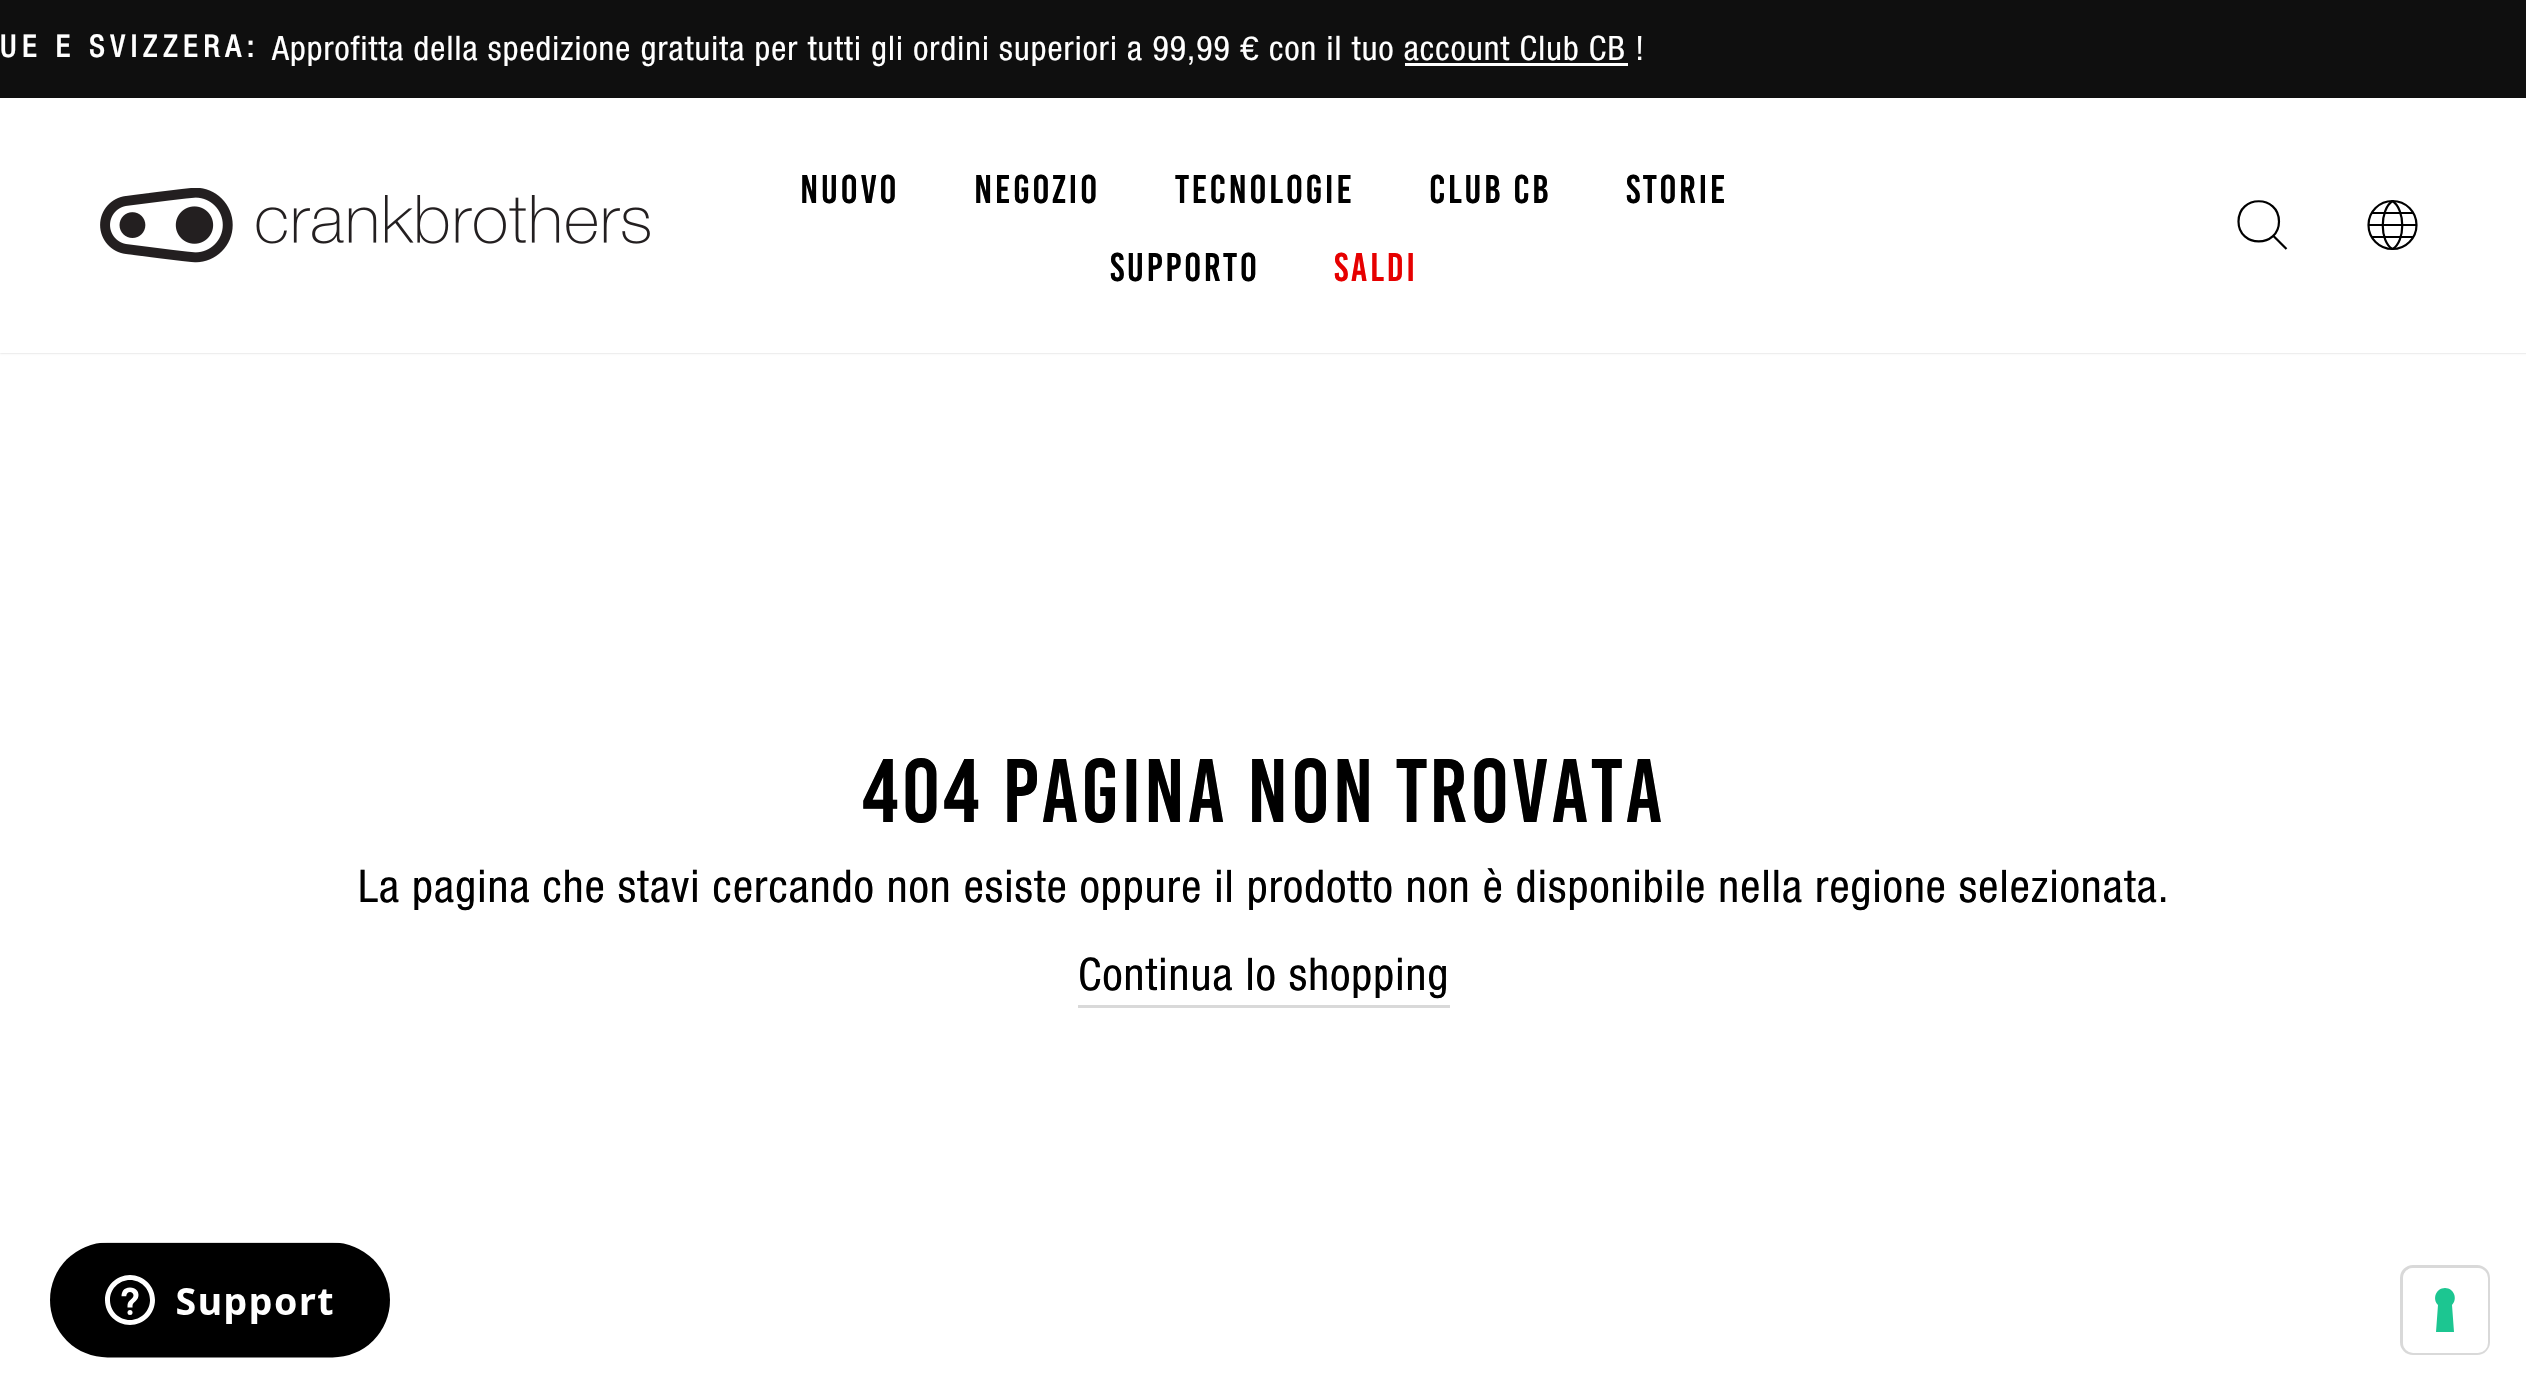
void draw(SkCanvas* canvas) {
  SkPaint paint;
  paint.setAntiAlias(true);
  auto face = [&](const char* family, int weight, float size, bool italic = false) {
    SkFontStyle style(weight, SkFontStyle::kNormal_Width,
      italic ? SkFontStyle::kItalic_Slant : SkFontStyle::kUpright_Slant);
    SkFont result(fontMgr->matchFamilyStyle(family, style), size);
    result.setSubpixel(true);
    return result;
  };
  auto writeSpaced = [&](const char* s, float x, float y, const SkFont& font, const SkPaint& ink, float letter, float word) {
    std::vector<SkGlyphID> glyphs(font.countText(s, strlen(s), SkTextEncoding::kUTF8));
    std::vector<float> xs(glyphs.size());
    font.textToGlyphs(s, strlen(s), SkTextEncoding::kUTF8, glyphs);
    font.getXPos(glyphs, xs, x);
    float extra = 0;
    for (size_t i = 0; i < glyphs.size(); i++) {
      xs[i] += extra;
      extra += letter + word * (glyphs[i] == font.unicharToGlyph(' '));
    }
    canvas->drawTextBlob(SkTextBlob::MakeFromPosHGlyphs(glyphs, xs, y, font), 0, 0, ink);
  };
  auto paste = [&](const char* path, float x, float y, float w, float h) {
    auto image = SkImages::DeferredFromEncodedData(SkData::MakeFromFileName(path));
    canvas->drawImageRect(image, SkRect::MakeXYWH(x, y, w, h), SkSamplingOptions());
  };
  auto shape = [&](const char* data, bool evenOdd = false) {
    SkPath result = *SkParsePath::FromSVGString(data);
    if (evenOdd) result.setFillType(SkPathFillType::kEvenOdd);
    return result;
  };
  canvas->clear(0xffffffff);
  paint.setColor(0xff0f0f0f);
  canvas->drawRect(SkRect::MakeXYWH(0, 0, 2526, 98), paint);
  paint.setColor(0xffffffff);
  canvas->drawRect(SkRect::MakeXYWH(1405, 63, 223, 3), paint);
  paint.setColor(0x33000000);
  paint.setMaskFilter(SkMaskFilter::MakeBlur(kNormal_SkBlurStyle, 1));
  canvas->drawRect(SkRect::MakeXYWH(0, 98, 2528, 255), paint);
  paint.setMaskFilter(nullptr);
  paint.setColor(0xffffffff);
  canvas->drawRect(SkRect::MakeXYWH(0, 98, 2526, 255), paint);
  paste("img/1.png", 100, 188, 550, 75);
  paint.setStroke(true);
  paint.setStrokeWidth(2.2f);
  paint.setColor(0xff000000);
  canvas->drawPath(shape("M2279 221.5C2279 248 2238.5 248 2238.5 221.5C2238.5 194.5 2279 194.5 2279 221.5ZM2286.5 249L2273.5 236"), paint);
  canvas->drawCircle(2392.5f, 225, 24, paint);
  canvas->drawPath(shape("M2371.5 213H2413.5M2368.5 225H2416.5M2371.5 237H2413.5M2392.5 201C2379.5 209.5 2379.5 241.5 2392.5 249M2392.5 201C2405.5 209.5 2405.5 241.5 2392.5 249"), paint);
  paint.setStroke(false);
  paint.setColor(0xffd9d9d9);
  canvas->drawRect(SkRect::MakeXYWH(1078, 1005, 372, 3), paint);
  paste("img/2.png", 50, 1242, 340, 116);
  paint.setStroke(true);
  paint.setStrokeWidth(3);
  canvas->drawRoundRect(SkRect::MakeXYWH(2401.5f, 1266.5f, 87, 87), 11.5f, 11.5f, paint);
  paint.setStroke(false);
  paint.setColor(0xffffffff);
  canvas->drawRoundRect(SkRect::MakeXYWH(2403, 1268, 85, 85), 10, 10, paint);
  paint.setColor(0xff1cc691);
  canvas->drawPath(shape("M2445 1288C2454 1288 2458 1299 2452 1305L2454 1332H2436L2438 1305C2432 1299 2436 1288 2445 1288Z", true), paint);
  auto f0 = face("Helvetica Neue", 700, 30.4f);
  paint.setColor(0xffffffff);
  writeSpaced("UE E SVIZZERA:", 0, 57, f0, paint, 6.1f, 0);
  auto f1 = face("Helvetica Neue", 400, 33.75f);
  writeSpaced("Approfitta della spedizione gratuita per tutti gli ordini superiori a 99,99", 272, 60, f1, paint, 1.12f, 0);
  auto f2 = face("Liberation Sans", 400, 33.75f);
  writeSpaced("€", 1240, 60, f2, paint, 1.12f, 0);
  writeSpaced("con il tuo account Club CB !", 1269, 60, f1, paint, 1.12f, 0);
  auto f3 = face("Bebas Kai", 400, 40);
  paint.setColor(0xff000000);
  {
    const struct { const char* s; float x, y; } items[] = {
      {"NUOVO", 800, 203},
      {"NEGOZIO", 974, 203},
      {"TECNOLOGIE", 1175, 203},
      {"CLUB CB", 1429, 203},
      {"STORIE", 1626, 203},
      {"SUPPORTO", 1110, 281},
    };
    for (auto [s, x, y] : items) {
      writeSpaced(s, x, y, f3, paint, 2.5f, 0);
    }
  }
  paint.setColor(0xffe60000);
  writeSpaced("SALDI", 1334, 281, f3, paint, 2.5f, 0);
  auto f4 = face("Bebas Kai", 400, 90);
  paint.setColor(0xff000000);
  writeSpaced("404 PAGINA NON TROVATA", 862, 822, f4, paint, 2.5f, 0);
  auto f5 = face("Helvetica Neue", 400, 45);
  writeSpaced("La pagina che stavi cercando non esiste oppure il prodotto non è disponibile nella regione selezionata.", 358, 902, f5, paint, 1.12f, 0);
  writeSpaced("Continua lo shopping", 1078, 990, f5, paint, 1.12f, 0);
}
